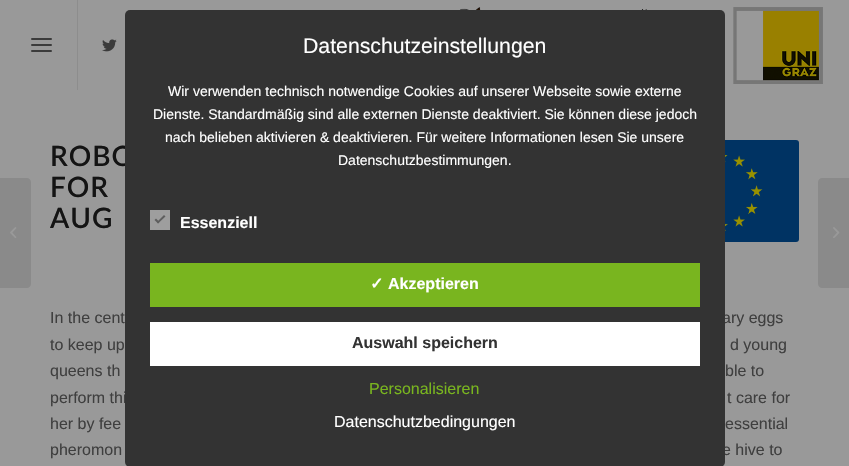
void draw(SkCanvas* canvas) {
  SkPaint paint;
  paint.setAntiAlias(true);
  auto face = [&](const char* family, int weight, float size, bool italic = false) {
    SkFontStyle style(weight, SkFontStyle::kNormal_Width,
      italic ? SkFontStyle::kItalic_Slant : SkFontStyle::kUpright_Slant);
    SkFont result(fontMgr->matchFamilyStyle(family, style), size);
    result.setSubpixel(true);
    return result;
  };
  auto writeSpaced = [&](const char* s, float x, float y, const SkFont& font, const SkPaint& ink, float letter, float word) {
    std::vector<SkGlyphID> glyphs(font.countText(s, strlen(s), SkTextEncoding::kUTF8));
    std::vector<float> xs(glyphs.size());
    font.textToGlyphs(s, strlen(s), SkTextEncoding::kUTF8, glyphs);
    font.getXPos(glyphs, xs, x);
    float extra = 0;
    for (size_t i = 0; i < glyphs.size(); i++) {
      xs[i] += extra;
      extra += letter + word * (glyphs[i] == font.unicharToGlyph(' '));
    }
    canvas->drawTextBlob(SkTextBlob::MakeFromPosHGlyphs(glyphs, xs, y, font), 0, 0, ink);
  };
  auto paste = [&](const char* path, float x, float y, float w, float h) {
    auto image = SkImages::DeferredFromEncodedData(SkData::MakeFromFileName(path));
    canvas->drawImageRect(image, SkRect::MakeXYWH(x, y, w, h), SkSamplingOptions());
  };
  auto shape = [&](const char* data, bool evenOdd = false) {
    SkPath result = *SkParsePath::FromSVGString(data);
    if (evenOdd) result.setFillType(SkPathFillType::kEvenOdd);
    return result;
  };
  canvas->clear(0xff999999);
  paint.setColor(0xff8d8d8d);
  canvas->drawRect(SkRect::MakeXYWH(77, 0, 1, 90), paint);
  paint.setColor(0xff3b3b3b);
  canvas->drawRoundRect(SkRect::MakeXYWH(31, 44, 21, 2), 1, 1, paint);
  canvas->drawRoundRect(SkRect::MakeXYWH(31, 38, 21, 2), 1, 1, paint);
  canvas->drawRoundRect(SkRect::MakeXYWH(31, 50, 21, 2), 1, 1, paint);
  paste("img/1.png", 102, 39, 15, 13);
  paste("img/2.png", 460, 7, 363, 77);
  paint.setColor(0xff8a8a8a);
  canvas->drawPath(shape("M0 178H27C29 178 31 180 31 182V284C31 286 29 288 27 288H0Z"), paint);
  paste("img/3.png", 10, 227, 7, 11);
  paste("img/4.png", 725, 140, 74, 102);
  canvas->drawPath(shape("M822 178H849V288H822C820 288 818 286 818 284V182C818 180 820 178 822 178Z"), paint);
  paste("img/5.png", 833, 227, 7, 11);
  auto f0 = face("Lato", 600, 28);
  paint.setColor(0xff141414);
  {
    const struct { const char* s; float x, y; } items[] = {
      {"ROBO", 50, 166},
      {"FOR", 50, 197},
      {"AUG", 50, 228},
    };
    for (auto [s, x, y] : items) {
      writeSpaced(s, x, y, f0, paint, 1, 0);
    }
  }
  auto f1 = face("Liberation Sans", 400, 16);
  paint.setColor(0xff3f3f3f);
  {
    const struct { const char* s; float x, y; } items[] = {
      {"In the cent", 50, 323},
      {"ary eggs", 722, 323},
      {"to keep up", 50, 350},
      {"d young", 730, 350},
      {"queens th", 50, 376},
      {"ble to", 725, 376},
      {"perform thi", 50, 403},
      {"t care for", 727, 403},
      {"her by fee", 50, 429},
      {"essential", 725, 429},
      {"pheromon", 50, 455},
      {"e hive to", 722, 455},
    };
    for (auto [s, x, y] : items) {
      canvas->drawString(s, x, y, f1, paint);
    }
  }
  paint.setColor(0xff333333);
  canvas->drawRoundRect(SkRect::MakeXYWH(125, 10, 600, 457), 5, 5, paint);
  paint.setColor(0xffffffff);
  canvas->drawRect(SkRect::MakeXYWH(150, 322, 550, 44), paint);
  auto f2 = face("Liberation Sans", 700, 16);
  paint.setColor(0xff333333);
  canvas->drawString("Auswahl speichern", 352, 348, f2, paint);
  paint.setColor(0xff79b51f);
  canvas->drawRect(SkRect::MakeXYWH(150, 263, 550, 44), paint);
  paint.setColor(0xffffffff);
  canvas->drawString("Akzeptieren", 388, 289, f2, paint);
  auto f3 = face("DejaVu Sans", 700, 16);
  canvas->drawString("✓", 370, 289, f3, paint);
  canvas->drawString("Datenschutzbedingungen", 334, 427, f1, paint);
  paint.setColor(0xff79b51f);
  canvas->drawString("Personalisieren", 369, 394, f1, paint);
  paint.setColor(0xff9e9e9e);
  canvas->drawRect(SkRect::MakeXYWH(150, 210, 20, 20), paint);
  paint.setColor(0xff5e5e5e);
  canvas->drawPath(shape("M164 215L165.5 216.5L158 223.5L157 222Z"), paint);
  canvas->drawPath(shape("M156 218.5L159.5 222L158 223.5L154.5 220Z"), paint);
  paint.setColor(0xffffffff);
  canvas->drawString("Essenziell", 180, 228, f2, paint);
  auto f4 = face("Liberation Sans", 400, 21.25f);
  canvas->drawString("Datenschutzeinstellungen", 303, 53, f4, paint);
  auto f5 = face("Liberation Sans", 400, 14);
  {
    const struct { const char* s; float x, y; } items[] = {
      {"Datenschutzbestimmungen.", 338, 165},
      {"nach belieben aktivieren & deaktivieren. Für weitere Informationen lesen Sie unsere", 165, 142},
      {"Dienste. Standardmäßig sind alle externen Dienste deaktiviert. Sie können diese jedoch", 153, 119},
      {"Wir verwenden technisch notwendige Cookies auf unserer Webseite sowie externe", 168, 96},
    };
    for (auto [s, x, y] : items) {
      canvas->drawString(s, x, y, f5, paint);
    }
  }
}
